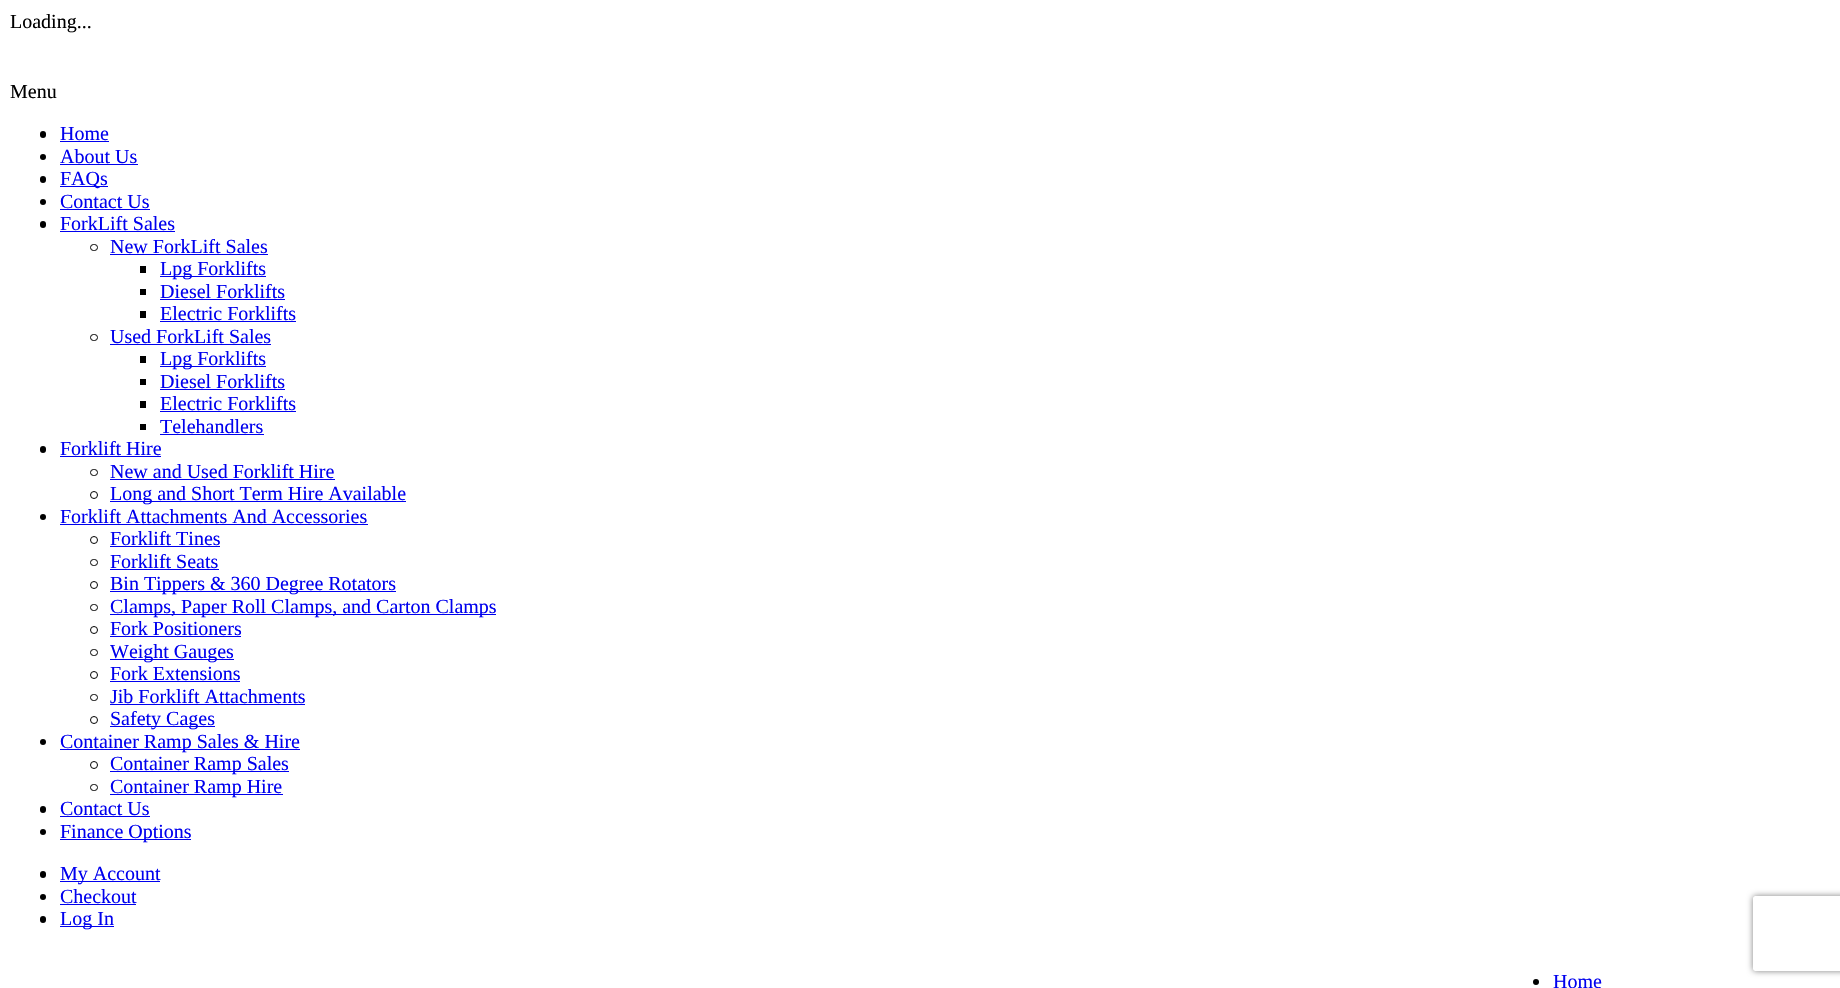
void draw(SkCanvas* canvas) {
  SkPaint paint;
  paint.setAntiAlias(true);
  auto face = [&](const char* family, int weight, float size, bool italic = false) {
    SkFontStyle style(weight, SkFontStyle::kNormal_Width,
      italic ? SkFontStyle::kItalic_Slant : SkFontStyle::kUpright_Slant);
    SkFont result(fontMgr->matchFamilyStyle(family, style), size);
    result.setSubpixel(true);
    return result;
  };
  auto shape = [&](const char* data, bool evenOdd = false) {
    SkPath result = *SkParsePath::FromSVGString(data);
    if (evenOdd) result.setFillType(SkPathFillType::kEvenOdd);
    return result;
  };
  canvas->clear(0xffffffff);
  paint.setColor(0xff000000);
  canvas->drawRoundRect(SkRect::MakeXYWH(40, 131, 6, 7), 3, 3, paint);
  paint.setColor(0xff0000ee);
  canvas->drawRect(SkRect::MakeXYWH(60, 141, 49, 1), paint);
  paint.setColor(0xff000000);
  canvas->drawCircle(43, 157, 3, paint);
  paint.setColor(0xff0000ee);
  canvas->drawRect(SkRect::MakeXYWH(60, 164, 78, 1), paint);
  paint.setColor(0xff000000);
  canvas->drawRoundRect(SkRect::MakeXYWH(40, 176, 6, 7), 3, 3, paint);
  paint.setColor(0xff0000ee);
  canvas->drawRect(SkRect::MakeXYWH(60, 186, 48, 1), paint);
  paint.setColor(0xff000000);
  canvas->drawCircle(43, 202, 3, paint);
  paint.setColor(0xff0000ee);
  canvas->drawRect(SkRect::MakeXYWH(60, 209, 90, 1), paint);
  paint.setColor(0xff000000);
  canvas->drawRoundRect(SkRect::MakeXYWH(40, 221, 6, 7), 3, 3, paint);
  paint.setColor(0xff0000ee);
  canvas->drawRect(SkRect::MakeXYWH(60, 231, 115, 1), paint);
  paint.setStroke(true);
  paint.setStrokeWidth(1);
  paint.setColor(0xff000000);
  canvas->drawRoundRect(SkRect::MakeXYWH(90.5f, 244.5f, 7, 6), 3, 3, paint);
  paint.setStroke(false);
  {
    const struct { float x, y, w, h; SkColor color; } items[] = {
      {110, 254, 158, 1, 0xff0000ee},
      {140, 266, 6, 7, 0xff000000},
      {160, 276, 106, 1, 0xff0000ee},
      {140, 289, 6, 6, 0xff000000},
      {160, 299, 125, 1, 0xff0000ee},
      {140, 311, 6, 7, 0xff000000},
      {160, 321, 136, 1, 0xff0000ee},
    };
    for (auto [x, y, w, h, color] : items) {
      paint.setColor(color);
      canvas->drawRect(SkRect::MakeXYWH(x, y, w, h), paint);
    }
  }
  paint.setStroke(true);
  paint.setColor(0xff000000);
  canvas->drawRoundRect(SkRect::MakeXYWH(90.5f, 334.5f, 7, 6), 3, 3, paint);
  paint.setStroke(false);
  {
    const struct { float x, y, w, h; SkColor color; } items[] = {
      {110, 344, 161, 1, 0xff0000ee},
      {140, 356, 6, 7, 0xff000000},
      {160, 366, 106, 1, 0xff0000ee},
      {140, 379, 6, 6, 0xff000000},
      {160, 389, 125, 1, 0xff0000ee},
      {140, 401, 6, 7, 0xff000000},
      {160, 411, 136, 1, 0xff0000ee},
      {140, 424, 6, 6, 0xff000000},
      {160, 434, 104, 1, 0xff0000ee},
    };
    for (auto [x, y, w, h, color] : items) {
      paint.setColor(color);
      canvas->drawRect(SkRect::MakeXYWH(x, y, w, h), paint);
    }
  }
  paint.setColor(0xff000000);
  canvas->drawRoundRect(SkRect::MakeXYWH(40, 446, 6, 7), 3, 3, paint);
  paint.setColor(0xff0000ee);
  canvas->drawRect(SkRect::MakeXYWH(60, 456, 101, 1), paint);
  paint.setStroke(true);
  paint.setColor(0xff000000);
  canvas->drawRoundRect(SkRect::MakeXYWH(90.5f, 469.5f, 7, 6), 3, 3, paint);
  paint.setStroke(false);
  paint.setColor(0xff0000ee);
  canvas->drawRect(SkRect::MakeXYWH(110, 479, 225, 1), paint);
  paint.setStroke(true);
  paint.setColor(0xff000000);
  canvas->drawCircle(94, 495, 3.5f, paint);
  paint.setStroke(false);
  paint.setColor(0xff0000ee);
  canvas->drawRect(SkRect::MakeXYWH(110, 501, 296, 1), paint);
  paint.setColor(0xff000000);
  canvas->drawCircle(43, 517, 3, paint);
  paint.setColor(0xff0000ee);
  canvas->drawRect(SkRect::MakeXYWH(60, 524, 308, 1), paint);
  paint.setStroke(true);
  paint.setColor(0xff000000);
  canvas->drawCircle(94, 540, 3.5f, paint);
  paint.setStroke(false);
  paint.setColor(0xff0000ee);
  canvas->drawRect(SkRect::MakeXYWH(110, 546, 110, 1), paint);
  paint.setStroke(true);
  paint.setColor(0xff000000);
  canvas->drawRoundRect(SkRect::MakeXYWH(90.5f, 559.5f, 7, 6), 3, 3, paint);
  paint.setStroke(false);
  paint.setColor(0xff0000ee);
  canvas->drawRect(SkRect::MakeXYWH(110, 569, 109, 1), paint);
  paint.setStroke(true);
  paint.setColor(0xff000000);
  canvas->drawCircle(94, 585, 3.5f, paint);
  paint.setStroke(false);
  paint.setColor(0xff0000ee);
  canvas->drawRect(SkRect::MakeXYWH(110, 591, 286, 1), paint);
  paint.setStroke(true);
  paint.setColor(0xff000000);
  canvas->drawRoundRect(SkRect::MakeXYWH(90.5f, 604.5f, 7, 6), 3, 3, paint);
  paint.setStroke(false);
  paint.setColor(0xff0000ee);
  canvas->drawRect(SkRect::MakeXYWH(110, 614, 386, 1), paint);
  paint.setStroke(true);
  paint.setColor(0xff000000);
  canvas->drawCircle(94, 630, 3.5f, paint);
  paint.setStroke(false);
  paint.setColor(0xff0000ee);
  canvas->drawRect(SkRect::MakeXYWH(110, 636, 131, 1), paint);
  paint.setStroke(true);
  paint.setColor(0xff000000);
  canvas->drawRoundRect(SkRect::MakeXYWH(90.5f, 649.5f, 7, 6), 3, 3, paint);
  paint.setStroke(false);
  paint.setColor(0xff0000ee);
  canvas->drawRect(SkRect::MakeXYWH(110, 659, 124, 1), paint);
  paint.setStroke(true);
  paint.setColor(0xff000000);
  canvas->drawCircle(94, 675, 3.5f, paint);
  paint.setStroke(false);
  paint.setColor(0xff0000ee);
  canvas->drawRect(SkRect::MakeXYWH(110, 681, 130, 1), paint);
  paint.setStroke(true);
  paint.setColor(0xff000000);
  canvas->drawRoundRect(SkRect::MakeXYWH(90.5f, 694.5f, 7, 6), 3, 3, paint);
  paint.setStroke(false);
  paint.setColor(0xff0000ee);
  canvas->drawRect(SkRect::MakeXYWH(110, 704, 195, 1), paint);
  paint.setStroke(true);
  paint.setColor(0xff000000);
  canvas->drawCircle(94, 720, 3.5f, paint);
  paint.setStroke(false);
  paint.setColor(0xff0000ee);
  canvas->drawRect(SkRect::MakeXYWH(110, 726, 105, 1), paint);
  paint.setColor(0xff000000);
  canvas->drawCircle(43, 742, 3, paint);
  paint.setColor(0xff0000ee);
  canvas->drawRect(SkRect::MakeXYWH(60, 749, 240, 1), paint);
  paint.setStroke(true);
  paint.setColor(0xff000000);
  canvas->drawCircle(94, 765, 3.5f, paint);
  paint.setStroke(false);
  paint.setColor(0xff0000ee);
  canvas->drawRect(SkRect::MakeXYWH(110, 771, 179, 1), paint);
  paint.setStroke(true);
  paint.setColor(0xff000000);
  canvas->drawRoundRect(SkRect::MakeXYWH(90.5f, 784.5f, 7, 6), 3, 3, paint);
  paint.setStroke(false);
  paint.setColor(0xff0000ee);
  canvas->drawRect(SkRect::MakeXYWH(110, 794, 173, 1), paint);
  paint.setColor(0xff000000);
  canvas->drawRoundRect(SkRect::MakeXYWH(40, 806, 6, 7), 3, 3, paint);
  paint.setColor(0xff0000ee);
  canvas->drawRect(SkRect::MakeXYWH(60, 816, 90, 1), paint);
  paint.setColor(0xff000000);
  canvas->drawCircle(43, 832, 3, paint);
  paint.setColor(0xff0000ee);
  canvas->drawRect(SkRect::MakeXYWH(60, 839, 131, 1), paint);
  paint.setColor(0xff000000);
  canvas->drawRoundRect(SkRect::MakeXYWH(40, 871, 6, 7), 3, 3, paint);
  paint.setColor(0xff0000ee);
  canvas->drawRect(SkRect::MakeXYWH(60, 881, 100, 1), paint);
  paint.setColor(0xff000000);
  canvas->drawCircle(43, 897, 3, paint);
  paint.setColor(0xff0000ee);
  canvas->drawRect(SkRect::MakeXYWH(60, 904, 76, 1), paint);
  paint.setColor(0xff000000);
  canvas->drawRoundRect(SkRect::MakeXYWH(40, 916, 6, 7), 3, 3, paint);
  paint.setColor(0xff0000ee);
  canvas->drawRect(SkRect::MakeXYWH(60, 926, 54, 1), paint);
  paint.setColor(0xff000000);
  canvas->drawCircle(1536, 982, 3, paint);
  canvas->save();
  canvas->clipPath(shape("M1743 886H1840V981H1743ZM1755.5 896H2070.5C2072 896 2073 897 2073 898.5V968.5C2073 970 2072 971 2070.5 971H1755.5C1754 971 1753 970 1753 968.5V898.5C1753 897 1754 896 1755.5 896Z", true), true);
  paint.setColor(0xff808080);
  paint.setMaskFilter(SkMaskFilter::MakeBlur(kNormal_SkBlurStyle, 3));
  canvas->drawRoundRect(SkRect::MakeXYWH(1753, 896, 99, 75), 2.5f, 2.5f, paint);
  paint.setMaskFilter(nullptr);
  canvas->restore();
  auto f0 = face("Liberation Serif", 400, 20);
  paint.setColor(0xff000000);
  canvas->drawString("Loading...", 10, 28, f0, paint);
  canvas->drawString("Menu", 10, 98, f0, paint);
  paint.setColor(0xff0000ee);
  {
    const struct { const char* s; float x, y; } items[] = {
      {"Home", 60, 140},
      {"About Us", 60, 163},
      {"FAQs", 60, 185},
      {"Contact Us", 60, 208},
      {"ForkLift Sales", 60, 230},
      {"New ForkLift Sales", 110, 253},
      {"Lpg Forklifts", 160, 275},
      {"Diesel Forklifts", 160, 298},
      {"Electric Forklifts", 160, 320},
      {"Used ForkLift Sales", 110, 343},
      {"Lpg Forklifts", 160, 365},
      {"Diesel Forklifts", 160, 388},
      {"Electric Forklifts", 160, 410},
      {"Telehandlers", 160, 433},
      {"Forklift Hire", 60, 455},
      {"New and Used Forklift Hire", 110, 478},
      {"Long and Short Term Hire Available", 110, 500},
      {"Forklift Attachments And Accessories", 60, 523},
      {"Forklift Tines", 110, 545},
      {"Forklift Seats", 110, 568},
      {"Bin Tippers & 360 Degree Rotators", 110, 590},
      {"Clamps, Paper Roll Clamps, and Carton Clamps", 110, 613},
      {"Fork Positioners", 110, 635},
      {"Weight Gauges", 110, 658},
      {"Fork Extensions", 110, 680},
      {"Jib Forklift Attachments", 110, 703},
      {"Safety Cages", 110, 725},
      {"Container Ramp Sales & Hire", 60, 748},
      {"Container Ramp Sales", 110, 770},
      {"Container Ramp Hire", 110, 793},
      {"Contact Us", 60, 815},
      {"Finance Options", 60, 838},
      {"My Account", 60, 880},
      {"Checkout", 60, 903},
      {"Log In", 60, 925},
      {"Home", 1553, 988},
    };
    for (auto [s, x, y] : items) {
      canvas->drawString(s, x, y, f0, paint);
    }
  }
}
